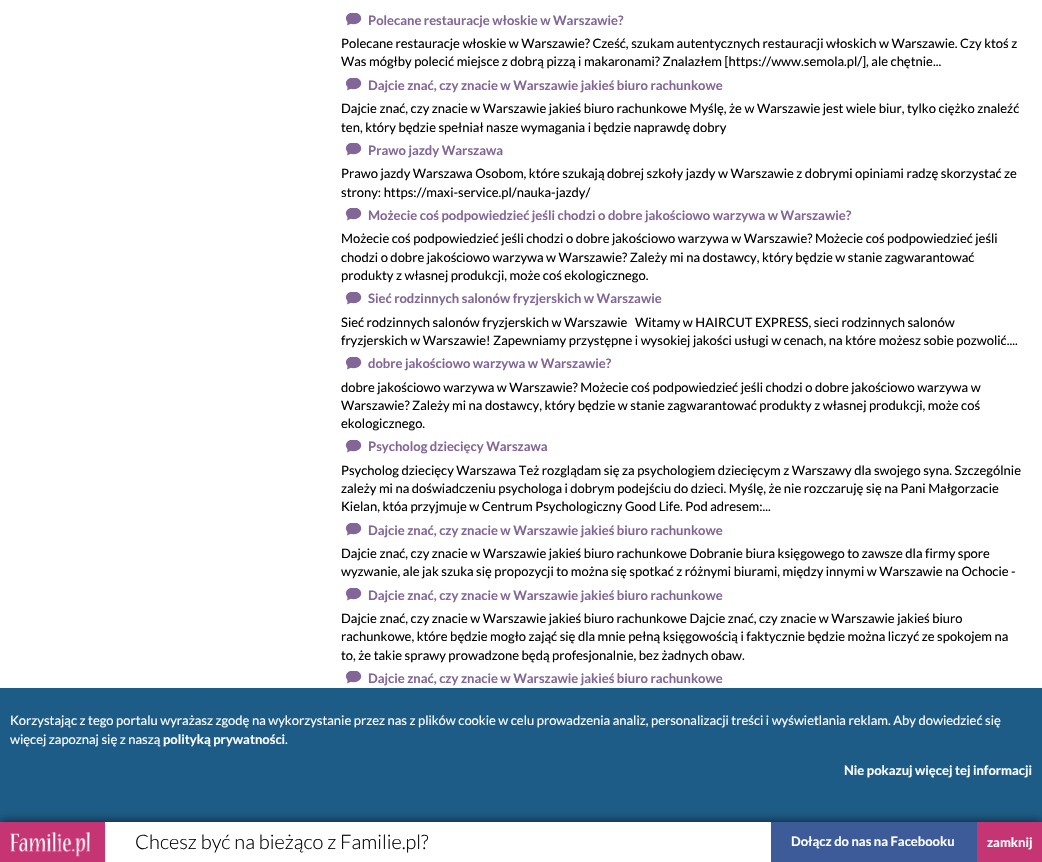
void draw(SkCanvas* canvas) {
  SkPaint paint;
  paint.setAntiAlias(true);
  auto face = [&](const char* family, int weight, float size, bool italic = false) {
    SkFontStyle style(weight, SkFontStyle::kNormal_Width,
      italic ? SkFontStyle::kItalic_Slant : SkFontStyle::kUpright_Slant);
    SkFont result(fontMgr->matchFamilyStyle(family, style), size);
    result.setSubpixel(true);
    return result;
  };
  auto paste = [&](const char* path, float x, float y, float w, float h) {
    auto image = SkImages::DeferredFromEncodedData(SkData::MakeFromFileName(path));
    canvas->drawImageRect(image, SkRect::MakeXYWH(x, y, w, h), SkSamplingOptions());
  };
  canvas->clear(0xffffffff);
  paste("img/1.png", 345, 13, 17, 13);
  paste("img/1.png", 345, 78, 17, 13);
  paste("img/1.png", 345, 143, 17, 13);
  paste("img/1.png", 345, 208, 17, 13);
  paste("img/1.png", 345, 292, 17, 13);
  paste("img/1.png", 345, 357, 17, 13);
  paste("img/1.png", 345, 440, 17, 13);
  paste("img/1.png", 345, 523, 17, 13);
  paste("img/1.png", 345, 588, 17, 13);
  paste("img/1.png", 345, 671, 17, 13);
  paint.setColor(0xff1d5c87);
  canvas->drawRect(SkRect::MakeXYWH(0, 688, 1042, 134), paint);
  paint.setColor(0xb3000000);
  paint.setMaskFilter(SkMaskFilter::MakeBlur(kNormal_SkBlurStyle, 5));
  canvas->drawRect(SkRect::MakeXYWH(0, 822, 1042, 40), paint);
  paint.setMaskFilter(nullptr);
  paint.setColor(0xffffffff);
  canvas->drawRect(SkRect::MakeXYWH(105, 822, 666, 40), paint);
  paint.setColor(0xffc53573);
  canvas->drawRect(SkRect::MakeXYWH(0, 822, 105, 40), paint);
  paste("img/2.png", 10, 832, 80, 25);
  paint.setColor(0xff3d5a99);
  canvas->drawRect(SkRect::MakeXYWH(771, 822, 206, 40), paint);
  paint.setColor(0xffc53573);
  canvas->drawRect(SkRect::MakeXYWH(977, 822, 65, 40), paint);
  auto f0 = face("Lato", 700, 13);
  paint.setColor(0xff826697);
  canvas->drawString("Polecane restauracje włoskie w Warszawie?", 368, 25, f0, paint);
  auto f1 = face("Lato", 400, 13);
  paint.setColor(0xff000000);
  canvas->drawString("Polecane restauracje włoskie w Warszawie? Cześć, szukam autentycznych restauracji włoskich w Warszawie. Czy ktoś z", 341, 48, f1, paint);
  canvas->drawString("Was mógłby polecić miejsce z dobrą pizzą i makaronami? Znalazłem [https://www.semola.pl/], ale chętnie...", 341, 66, f1, paint);
  paint.setColor(0xff826697);
  canvas->drawString("Dajcie znać, czy znacie w Warszawie jakieś biuro rachunkowe", 368, 90, f0, paint);
  paint.setColor(0xff000000);
  canvas->drawString("Dajcie znać, czy znacie w Warszawie jakieś biuro rachunkowe Myślę, że w Warszawie jest wiele biur, tylko ciężko znaleźć", 341, 113, f1, paint);
  canvas->drawString("ten, który będzie spełniał nasze wymagania i będzie naprawdę dobry", 341, 132, f1, paint);
  paint.setColor(0xff826697);
  canvas->drawString("Prawo jazdy Warszawa", 368, 155, f0, paint);
  paint.setColor(0xff000000);
  canvas->drawString("Prawo jazdy Warszawa Osobom, które szukają dobrej szkoły jazdy w Warszawie z dobrymi opiniami radzę skorzystać ze", 341, 178, f1, paint);
  canvas->drawString("strony: https://maxi-service.pl/nauka-jazdy/", 341, 197, f1, paint);
  paint.setColor(0xff826697);
  canvas->drawString("Możecie coś podpowiedzieć jeśli chodzi o dobre jakościowo warzywa w Warszawie?", 368, 220, f0, paint);
  paint.setColor(0xff000000);
  {
    const struct { const char* s; float x, y; } items[] = {
      {"Możecie coś podpowiedzieć jeśli chodzi o dobre jakościowo warzywa w Warszawie? Możecie coś podpowiedzieć jeśli", 341, 243},
      {"chodzi o dobre jakościowo warzywa w Warszawie? Zależy mi na dostawcy, który będzie w stanie zagwarantować", 341, 262},
      {"produkty z własnej produkcji, może coś ekologicznego.", 341, 280},
    };
    for (auto [s, x, y] : items) {
      canvas->drawString(s, x, y, f1, paint);
    }
  }
  paint.setColor(0xff826697);
  canvas->drawString("Sieć rodzinnych salonów fryzjerskich w Warszawie", 368, 303, f0, paint);
  paint.setColor(0xff000000);
  {
    const struct { const char* s; float x, y; } items[] = {
      {"Sieć rodzinnych salonów fryzjerskich w Warszawie", 341, 327},
      {"Witamy w HAIRCUT EXPRESS, sieci rodzinnych salonów", 635, 327},
      {"fryzjerskich w Warszawie! Zapewniamy przystępne i wysokiej jakości usługi w cenach, na które możesz sobie pozwolić....", 341, 345},
    };
    for (auto [s, x, y] : items) {
      canvas->drawString(s, x, y, f1, paint);
    }
  }
  paint.setColor(0xff826697);
  canvas->drawString("dobre jakościowo warzywa w Warszawie?", 368, 368, f0, paint);
  paint.setColor(0xff000000);
  {
    const struct { const char* s; float x, y; } items[] = {
      {"dobre jakościowo warzywa w Warszawie? Możecie coś podpowiedzieć jeśli chodzi o dobre jakościowo warzywa w", 341, 392},
      {"Warszawie? Zależy mi na dostawcy, który będzie w stanie zagwarantować produkty z własnej produkcji, może coś", 341, 410},
      {"ekologicznego.", 341, 428},
    };
    for (auto [s, x, y] : items) {
      canvas->drawString(s, x, y, f1, paint);
    }
  }
  paint.setColor(0xff826697);
  canvas->drawString("Psycholog dziecięcy Warszawa", 368, 451, f0, paint);
  paint.setColor(0xff000000);
  {
    const struct { const char* s; float x, y; } items[] = {
      {"Psycholog dziecięcy Warszawa Też rozglądam się za psychologiem dziecięcym z Warszawy dla swojego syna. Szczególnie", 341, 475},
      {"zależy mi na doświadczeniu psychologa i dobrym podejściu do dzieci. Myślę, że nie rozczaruję się na Pani Małgorzacie", 341, 493},
      {"Kielan, któa przyjmuje w Centrum Psychologiczny Good Life. Pod adresem:...", 341, 511},
    };
    for (auto [s, x, y] : items) {
      canvas->drawString(s, x, y, f1, paint);
    }
  }
  paint.setColor(0xff826697);
  canvas->drawString("Dajcie znać, czy znacie w Warszawie jakieś biuro rachunkowe", 368, 535, f0, paint);
  paint.setColor(0xff000000);
  canvas->drawString("Dajcie znać, czy znacie w Warszawie jakieś biuro rachunkowe Dobranie biura księgowego to zawsze dla firmy spore", 341, 558, f1, paint);
  canvas->drawString("wyzwanie, ale jak szuka się propozycji to można się spotkać z różnymi biurami, między innymi w Warszawie na Ochocie -", 341, 576, f1, paint);
  paint.setColor(0xff826697);
  canvas->drawString("Dajcie znać, czy znacie w Warszawie jakieś biuro rachunkowe", 368, 600, f0, paint);
  paint.setColor(0xff000000);
  {
    const struct { const char* s; float x, y; } items[] = {
      {"Dajcie znać, czy znacie w Warszawie jakieś biuro rachunkowe Dajcie znać, czy znacie w Warszawie jakieś biuro", 341, 623},
      {"rachunkowe, które będzie mogło zająć się dla mnie pełną księgowością i faktycznie będzie można liczyć ze spokojem na", 341, 641},
      {"to, że takie sprawy prowadzone będą profesjonalnie, bez żadnych obaw.", 341, 660},
    };
    for (auto [s, x, y] : items) {
      canvas->drawString(s, x, y, f1, paint);
    }
  }
  paint.setColor(0xff826697);
  canvas->drawString("Dajcie znać, czy znacie w Warszawie jakieś biuro rachunkowe", 368, 683, f0, paint);
  paint.setColor(0xffffffff);
  canvas->drawString("Korzystając z tego portalu wyrażasz zgodę na wykorzystanie przez nas z plików cookie w celu prowadzenia analiz, personalizacji treści i wyświetlania reklam. Aby dowiedzieć się", 10, 725, f1, paint);
  canvas->drawString("więcej zapoznaj się z naszą", 10, 744, f1, paint);
  canvas->drawString("polityką prywatności", 163, 744, f0, paint);
  canvas->drawString(".", 285, 744, f1, paint);
  canvas->drawString("Nie pokazuj więcej tej informacji", 844, 775, f0, paint);
  auto f2 = face("Lato", 300, 20);
  paint.setColor(0xff000000);
  canvas->drawString("Chcesz być na bieżąco z Familie.pl?", 135, 849, f2, paint);
  paint.setColor(0xffffffff);
  canvas->drawString("Dołącz do nas na Facebooku", 791, 846, f0, paint);
  canvas->drawString("zamknij", 987, 847, f0, paint);
}
